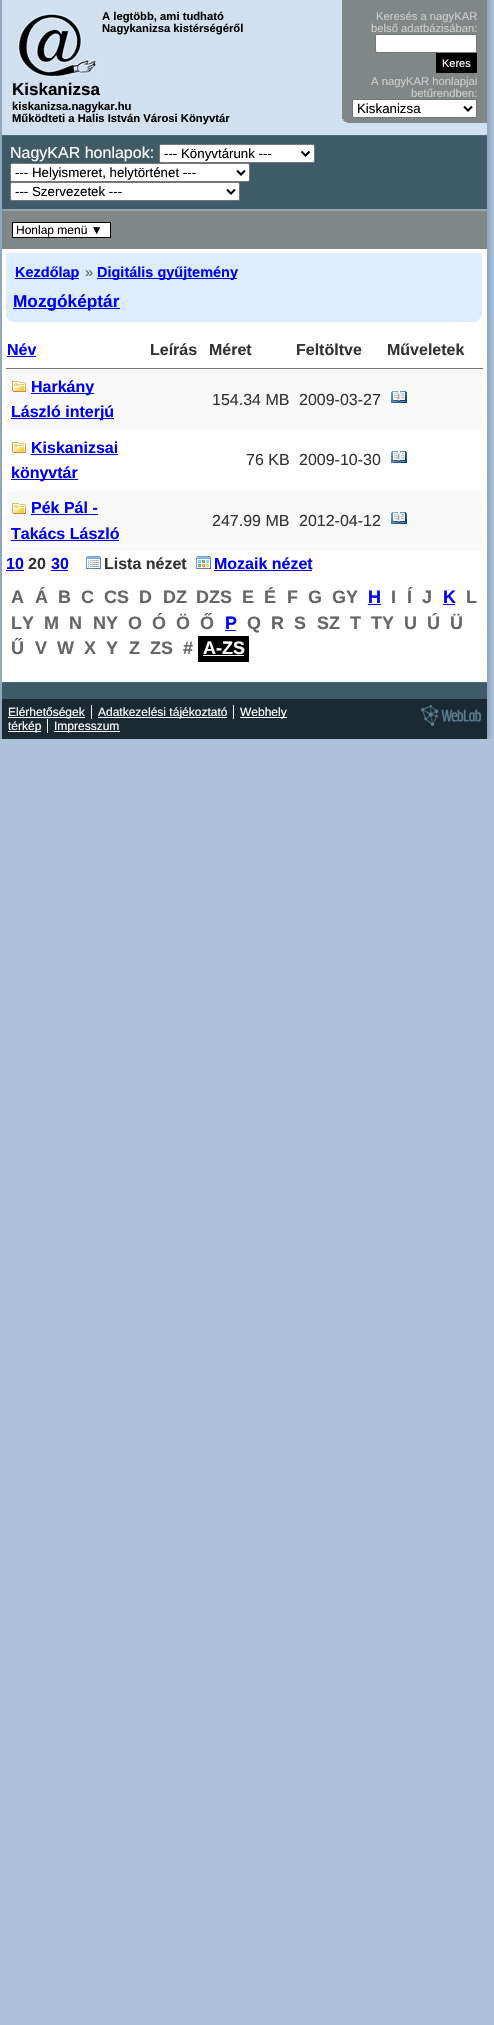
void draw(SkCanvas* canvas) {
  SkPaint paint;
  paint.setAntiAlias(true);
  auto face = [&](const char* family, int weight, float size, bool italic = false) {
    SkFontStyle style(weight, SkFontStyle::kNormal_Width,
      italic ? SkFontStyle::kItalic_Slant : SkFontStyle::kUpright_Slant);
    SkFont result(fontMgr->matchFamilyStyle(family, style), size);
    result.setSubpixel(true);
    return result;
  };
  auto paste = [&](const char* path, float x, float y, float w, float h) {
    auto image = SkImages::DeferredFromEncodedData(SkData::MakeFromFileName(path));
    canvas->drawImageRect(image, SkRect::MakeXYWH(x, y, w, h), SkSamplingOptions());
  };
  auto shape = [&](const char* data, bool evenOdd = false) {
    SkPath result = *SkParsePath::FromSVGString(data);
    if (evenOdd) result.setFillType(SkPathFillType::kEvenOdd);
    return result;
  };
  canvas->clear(0xffacc2d9);
  paint.setColor(0xff8fa7bf);
  canvas->drawRect(SkRect::MakeXYWH(0, 0, 488, 739), paint);
  paste("img/1.png", 488, 0, 6, 739);
  {
    const struct { float x, y, w, h; SkColor color; } items[] = {
      {2, 249, 485, 433, 0xffffffff},
      {2, 0, 485, 135, 0xffd1e0ef},
      {2, 209, 485, 2, 0xff99a4af},
    };
    for (auto [x, y, w, h, color] : items) {
      paint.setColor(color);
      canvas->drawRect(SkRect::MakeXYWH(x, y, w, h), paint);
    }
  }
  paste("img/2.png", 12, 10, 90, 70);
  paint.setColor(0xff818787);
  canvas->drawRect(SkRect::MakeXYWH(342, 0, 145, 123), paint);
  paste("img/3.png", 342, 119, 5, 4);
  paint.setColor(0xffffffff);
  canvas->drawRoundRect(SkRect::MakeXYWH(375.5f, 34.5f, 101, 18), 1.5f, 1.5f, paint);
  paint.setStroke(true);
  paint.setStrokeWidth(1);
  paint.setColor(0xff767676);
  canvas->drawRoundRect(SkRect::MakeXYWH(375.5f, 34.5f, 101, 18), 1.5f, 1.5f, paint);
  paint.setStroke(false);
  paint.setColor(0xff000000);
  canvas->drawRect(SkRect::MakeXYWH(436, 53, 41, 20), paint);
  paint.setColor(0xffffffff);
  canvas->drawRoundRect(SkRect::MakeXYWH(352.5f, 99.5f, 124, 18), 1.5f, 1.5f, paint);
  paint.setStroke(true);
  paint.setColor(0xff767676);
  canvas->drawRoundRect(SkRect::MakeXYWH(352.5f, 99.5f, 124, 18), 1.5f, 1.5f, paint);
  paint.setStrokeWidth(2);
  paint.setColor(0xff000000);
  canvas->drawPath(shape("M464 106.5L468 110.5L472 106.5"), paint);
  paint.setStroke(false);
  paint.setColor(0xff3f5b68);
  canvas->drawRect(SkRect::MakeXYWH(2, 136, 485, 73), paint);
  paint.setColor(0xff476e7f);
  canvas->drawRect(SkRect::MakeXYWH(2, 135, 485, 1), paint);
  paint.setColor(0xffffffff);
  canvas->drawRoundRect(SkRect::MakeXYWH(159.5f, 144.5f, 155, 18), 1.5f, 1.5f, paint);
  paint.setStroke(true);
  paint.setStrokeWidth(1);
  paint.setColor(0xff767676);
  canvas->drawRoundRect(SkRect::MakeXYWH(159.5f, 144.5f, 155, 18), 1.5f, 1.5f, paint);
  paint.setStrokeWidth(2);
  paint.setColor(0xff000000);
  canvas->drawPath(shape("M301.5 151.5L305.5 155.5L309.5 151.5"), paint);
  paint.setStroke(false);
  paint.setColor(0xffffffff);
  canvas->drawRoundRect(SkRect::MakeXYWH(10.5f, 163.5f, 239, 18), 1.5f, 1.5f, paint);
  paint.setStroke(true);
  paint.setStrokeWidth(1);
  paint.setColor(0xff767676);
  canvas->drawRoundRect(SkRect::MakeXYWH(10.5f, 163.5f, 239, 18), 1.5f, 1.5f, paint);
  paint.setStrokeWidth(2);
  paint.setColor(0xff000000);
  canvas->drawPath(shape("M237 170.5L241 174.5L245 170.5"), paint);
  paint.setStroke(false);
  paint.setColor(0xffffffff);
  canvas->drawRoundRect(SkRect::MakeXYWH(10.5f, 182.5f, 229, 18), 1.5f, 1.5f, paint);
  paint.setStroke(true);
  paint.setStrokeWidth(1);
  paint.setColor(0xff767676);
  canvas->drawRoundRect(SkRect::MakeXYWH(10.5f, 182.5f, 229, 18), 1.5f, 1.5f, paint);
  paint.setStrokeWidth(2);
  paint.setColor(0xff000000);
  canvas->drawPath(shape("M227 189.5L231 193.5L235 189.5"), paint);
  paint.setStroke(false);
  paint.setColor(0xff818787);
  canvas->drawRect(SkRect::MakeXYWH(2, 211, 485, 38), paint);
  paint.setColor(0xffffffff);
  canvas->drawRect(SkRect::MakeXYWH(12.5f, 222.5f, 98, 15), paint);
  paint.setStroke(true);
  paint.setStrokeWidth(1);
  paint.setColor(0xff000000);
  canvas->drawRect(SkRect::MakeXYWH(12.5f, 222.5f, 98, 15), paint);
  paint.setStroke(false);
  paint.setColor(0xffdcecfb);
  canvas->drawRect(SkRect::MakeXYWH(6, 253, 476, 69), paint);
  paste("img/4.png", 6, 317, 6, 5);
  paste("img/5.png", 476, 316, 6, 6);
  {
    const struct { float x, y, w, h; SkColor color; } items[] = {
      {15, 278, 64, 1, 0xff0000ee},
      {97, 278, 140, 1, 0xff0000ee},
      {13, 308, 107, 1, 0xff0000ee},
      {7, 356, 29, 1, 0xff0000ee},
      {6, 368, 477, 1, 0xff777777},
      {6, 369, 476, 61, 0xfff9f9f9},
    };
    for (auto [x, y, w, h, color] : items) {
      paint.setColor(color);
      canvas->drawRect(SkRect::MakeXYWH(x, y, w, h), paint);
    }
  }
  paste("img/6.png", 12, 381, 14, 11);
  paint.setColor(0xff0000ee);
  canvas->drawRect(SkRect::MakeXYWH(31, 393, 63, 1), paint);
  canvas->drawRect(SkRect::MakeXYWH(11, 418, 103, 1), paint);
  paste("img/7.png", 391, 391, 16, 12);
  paste("img/8.png", 12, 442, 14, 11);
  canvas->drawRect(SkRect::MakeXYWH(31, 454, 87, 1), paint);
  canvas->drawRect(SkRect::MakeXYWH(11, 479, 67, 1), paint);
  paste("img/9.png", 391, 451, 16, 12);
  paint.setColor(0xfff9f9f9);
  canvas->drawRect(SkRect::MakeXYWH(6, 491, 476, 60), paint);
  paste("img/6.png", 12, 503, 14, 11);
  paint.setColor(0xff0000ee);
  canvas->drawRect(SkRect::MakeXYWH(31, 514, 67, 1), paint);
  canvas->drawRect(SkRect::MakeXYWH(11, 540, 108, 1), paint);
  paste("img/7.png", 391, 512, 16, 12);
  canvas->drawRect(SkRect::MakeXYWH(6, 570, 18, 1), paint);
  canvas->drawRect(SkRect::MakeXYWH(51, 570, 17, 1), paint);
  paste("img/10.png", 86, 556, 15, 13);
  paste("img/11.png", 196, 556, 15, 13);
  {
    const struct { float x, y, w, h; SkColor color; } items[] = {
      {214, 570, 98, 1, 0xff0000ee},
      {368, 604, 13, 1, 0xff0000ee},
      {443, 604, 12, 1, 0xff0000ee},
      {225, 630, 11, 1, 0xff0000ee},
      {198, 636, 51, 26, 0xff000000},
      {203, 655, 41, 1, 0xffffffff},
      {2, 699, 485, 40, 0xff1b2a32},
      {2, 683, 485, 16, 0xff3f5b68},
      {2, 682, 485, 1, 0xff476e7f},
      {91, 705, 1, 14, 0xfffefefe},
      {8, 717, 77, 1, 0xffffffff},
      {233, 705, 1, 14, 0xfffefefe},
      {98, 717, 129, 1, 0xffffffff},
      {240, 717, 47, 1, 0xffffffff},
      {47, 719, 1, 14, 0xfffefefe},
      {8, 731, 33, 1, 0xffffffff},
      {54, 731, 66, 1, 0xffffffff},
    };
    for (auto [x, y, w, h, color] : items) {
      paint.setColor(color);
      canvas->drawRect(SkRect::MakeXYWH(x, y, w, h), paint);
    }
  }
  paste("img/12.png", 421, 705, 60, 21);
  auto f0 = face("Liberation Sans", 700, 11.25f);
  paint.setColor(0xff000000);
  canvas->drawString("A legtöbb, ami tudható", 102, 20, f0, paint);
  canvas->drawString("Nagykanizsa kistérségéről", 102, 32, f0, paint);
  auto f1 = face("Liberation Sans", 700, 17);
  canvas->drawString("Kiskanizsa", 12, 95, f1, paint);
  canvas->drawString("kiskanizsa.nagykar.hu", 12, 110, f0, paint);
  canvas->drawString("Működteti a Halis István Városi Könyvtár", 12, 122, f0, paint);
  auto f2 = face("Liberation Sans", 400, 11.25f);
  paint.setColor(0xffcccccc);
  canvas->drawString("Keresés a nagyKAR", 376, 20, f2, paint);
  canvas->drawString("belső adatbázisában:", 371, 32, f2, paint);
  auto f3 = face("Liberation Sans", 400, 11);
  paint.setColor(0xffffffff);
  canvas->drawString("Keres", 442, 67, f3, paint);
  paint.setColor(0xffcccccc);
  canvas->drawString("A nagyKAR honlapjai", 371, 85, f2, paint);
  canvas->drawString("betűrendben:", 411, 97, f2, paint);
  auto f4 = face("Liberation Sans", 400, 13.3f);
  paint.setColor(0xff000000);
  canvas->drawString("Kiskanizsa", 357, 113, f4, paint);
  auto f5 = face("Liberation Sans", 400, 16);
  paint.setColor(0xffffffff);
  canvas->drawString("NagyKAR honlapok:", 10, 158, f5, paint);
  paint.setColor(0xff000000);
  {
    const struct { const char* s; float x, y; } items[] = {
      {"--- Könyvtárunk ---", 164, 158},
      {"--- Helyismeret, helytörténet ---", 15, 177},
      {"--- Szervezetek ---", 15, 196},
    };
    for (auto [s, x, y] : items) {
      canvas->drawString(s, x, y, f4, paint);
    }
  }
  auto f6 = face("Liberation Sans", 400, 12);
  canvas->drawString("Honlap menü ▼", 16, 234, f6, paint);
  auto f7 = face("Liberation Sans", 700, 14.5f);
  paint.setColor(0xff0000ee);
  canvas->drawString("Kezdőlap", 15, 277, f7, paint);
  auto f8 = face("Liberation Sans", 400, 14.5f);
  paint.setColor(0xff595c5f);
  canvas->drawString("»", 85, 277, f8, paint);
  paint.setColor(0xff0000ee);
  canvas->drawString("Digitális gyűjtemény", 97, 277, f7, paint);
  auto f9 = face("Liberation Sans", 700, 17.25f);
  canvas->drawString("Mozgóképtár", 13, 307, f9, paint);
  auto f10 = face("Liberation Sans", 700, 16);
  canvas->drawString("Név", 7, 355, f10, paint);
  paint.setColor(0xff333333);
  {
    const struct { const char* s; float x, y; } items[] = {
      {"Leírás", 150, 355},
      {"Méret", 209, 355},
      {"Feltöltve", 296, 355},
      {"Műveletek", 387, 355},
    };
    for (auto [s, x, y] : items) {
      canvas->drawString(s, x, y, f10, paint);
    }
  }
  paint.setColor(0xff0000ee);
  canvas->drawString("Harkány", 31, 392, f10, paint);
  canvas->drawString("László interjú", 11, 417, f10, paint);
  paint.setColor(0xff333333);
  canvas->drawString("154.34 MB", 212, 405, f5, paint);
  canvas->drawString("2009-03-27", 299, 405, f5, paint);
  paint.setColor(0xff0000ee);
  canvas->drawString("Kiskanizsai", 31, 453, f10, paint);
  canvas->drawString("könyvtár", 11, 478, f10, paint);
  paint.setColor(0xff333333);
  canvas->drawString("76 KB", 246, 465, f5, paint);
  canvas->drawString("2009-10-30", 299, 465, f5, paint);
  paint.setColor(0xff0000ee);
  canvas->drawString("Pék Pál -", 31, 513, f10, paint);
  canvas->drawString("Takács László", 11, 539, f10, paint);
  paint.setColor(0xff333333);
  canvas->drawString("247.99 MB", 212, 526, f5, paint);
  canvas->drawString("2012-04-12", 299, 526, f5, paint);
  paint.setColor(0xff0000ee);
  canvas->drawString("10", 6, 569, f10, paint);
  paint.setColor(0xff333333);
  canvas->drawString("20", 28, 569, f10, paint);
  paint.setColor(0xff0000ee);
  canvas->drawString("30", 51, 569, f10, paint);
  paint.setColor(0xff333333);
  canvas->drawString("Lista nézet", 104, 569, f10, paint);
  paint.setColor(0xff0000ee);
  canvas->drawString("Mozaik nézet", 214, 569, f10, paint);
  auto f11 = face("Liberation Sans", 700, 18);
  paint.setColor(0xff666666);
  {
    const struct { const char* s; float x, y; } items[] = {
      {"A", 11, 603},
      {"Á", 35, 603},
      {"B", 58, 603},
      {"C", 81, 603},
      {"CS", 104, 603},
      {"D", 139, 603},
      {"DZ", 163, 603},
      {"DZS", 196, 603},
      {"E", 242, 603},
      {"É", 264, 603},
      {"F", 287, 603},
      {"G", 308, 603},
      {"GY", 332, 603},
    };
    for (auto [s, x, y] : items) {
      canvas->drawString(s, x, y, f11, paint);
    }
  }
  paint.setColor(0xff0000ee);
  canvas->drawString("H", 368, 603, f11, paint);
  paint.setColor(0xff666666);
  {
    const struct { const char* s; float x, y; } items[] = {
      {"I", 391, 603},
      {"Í", 407, 603},
      {"J", 422, 603},
    };
    for (auto [s, x, y] : items) {
      canvas->drawString(s, x, y, f11, paint);
    }
  }
  paint.setColor(0xff0000ee);
  canvas->drawString("K", 443, 603, f11, paint);
  paint.setColor(0xff666666);
  {
    const struct { const char* s; float x, y; } items[] = {
      {"L", 466, 603},
      {"LY", 11, 629},
      {"M", 44, 629},
      {"N", 69, 629},
      {"NY", 93, 629},
      {"O", 128, 629},
      {"Ó", 152, 629},
      {"Ö", 176, 629},
      {"Ő", 200, 629},
    };
    for (auto [s, x, y] : items) {
      canvas->drawString(s, x, y, f11, paint);
    }
  }
  paint.setColor(0xff0000ee);
  canvas->drawString("P", 225, 629, f11, paint);
  paint.setColor(0xff666666);
  {
    const struct { const char* s; float x, y; } items[] = {
      {"Q", 247, 629},
      {"R", 271, 629},
      {"S", 294, 629},
      {"SZ", 317, 629},
      {"T", 350, 629},
      {"TY", 371, 629},
      {"U", 404, 629},
      {"Ú", 427, 629},
      {"Ü", 450, 629},
      {"Ű", 11, 654},
      {"V", 35, 654},
      {"W", 57, 654},
      {"X", 84, 654},
      {"Y", 106, 654},
      {"Z", 129, 654},
      {"ZS", 150, 654},
      {"#", 183, 654},
    };
    for (auto [s, x, y] : items) {
      canvas->drawString(s, x, y, f11, paint);
    }
  }
  paint.setColor(0xffffffff);
  canvas->drawString("A-ZS", 203, 654, f11, paint);
  {
    const struct { const char* s; float x, y; } items[] = {
      {"Elérhetőségek", 8, 716},
      {"Adatkezelési tájékoztató", 98, 716},
      {"Webhely", 240, 716},
      {"térkép", 8, 730},
      {"Impresszum", 54, 730},
    };
    for (auto [s, x, y] : items) {
      canvas->drawString(s, x, y, f6, paint);
    }
  }
}
